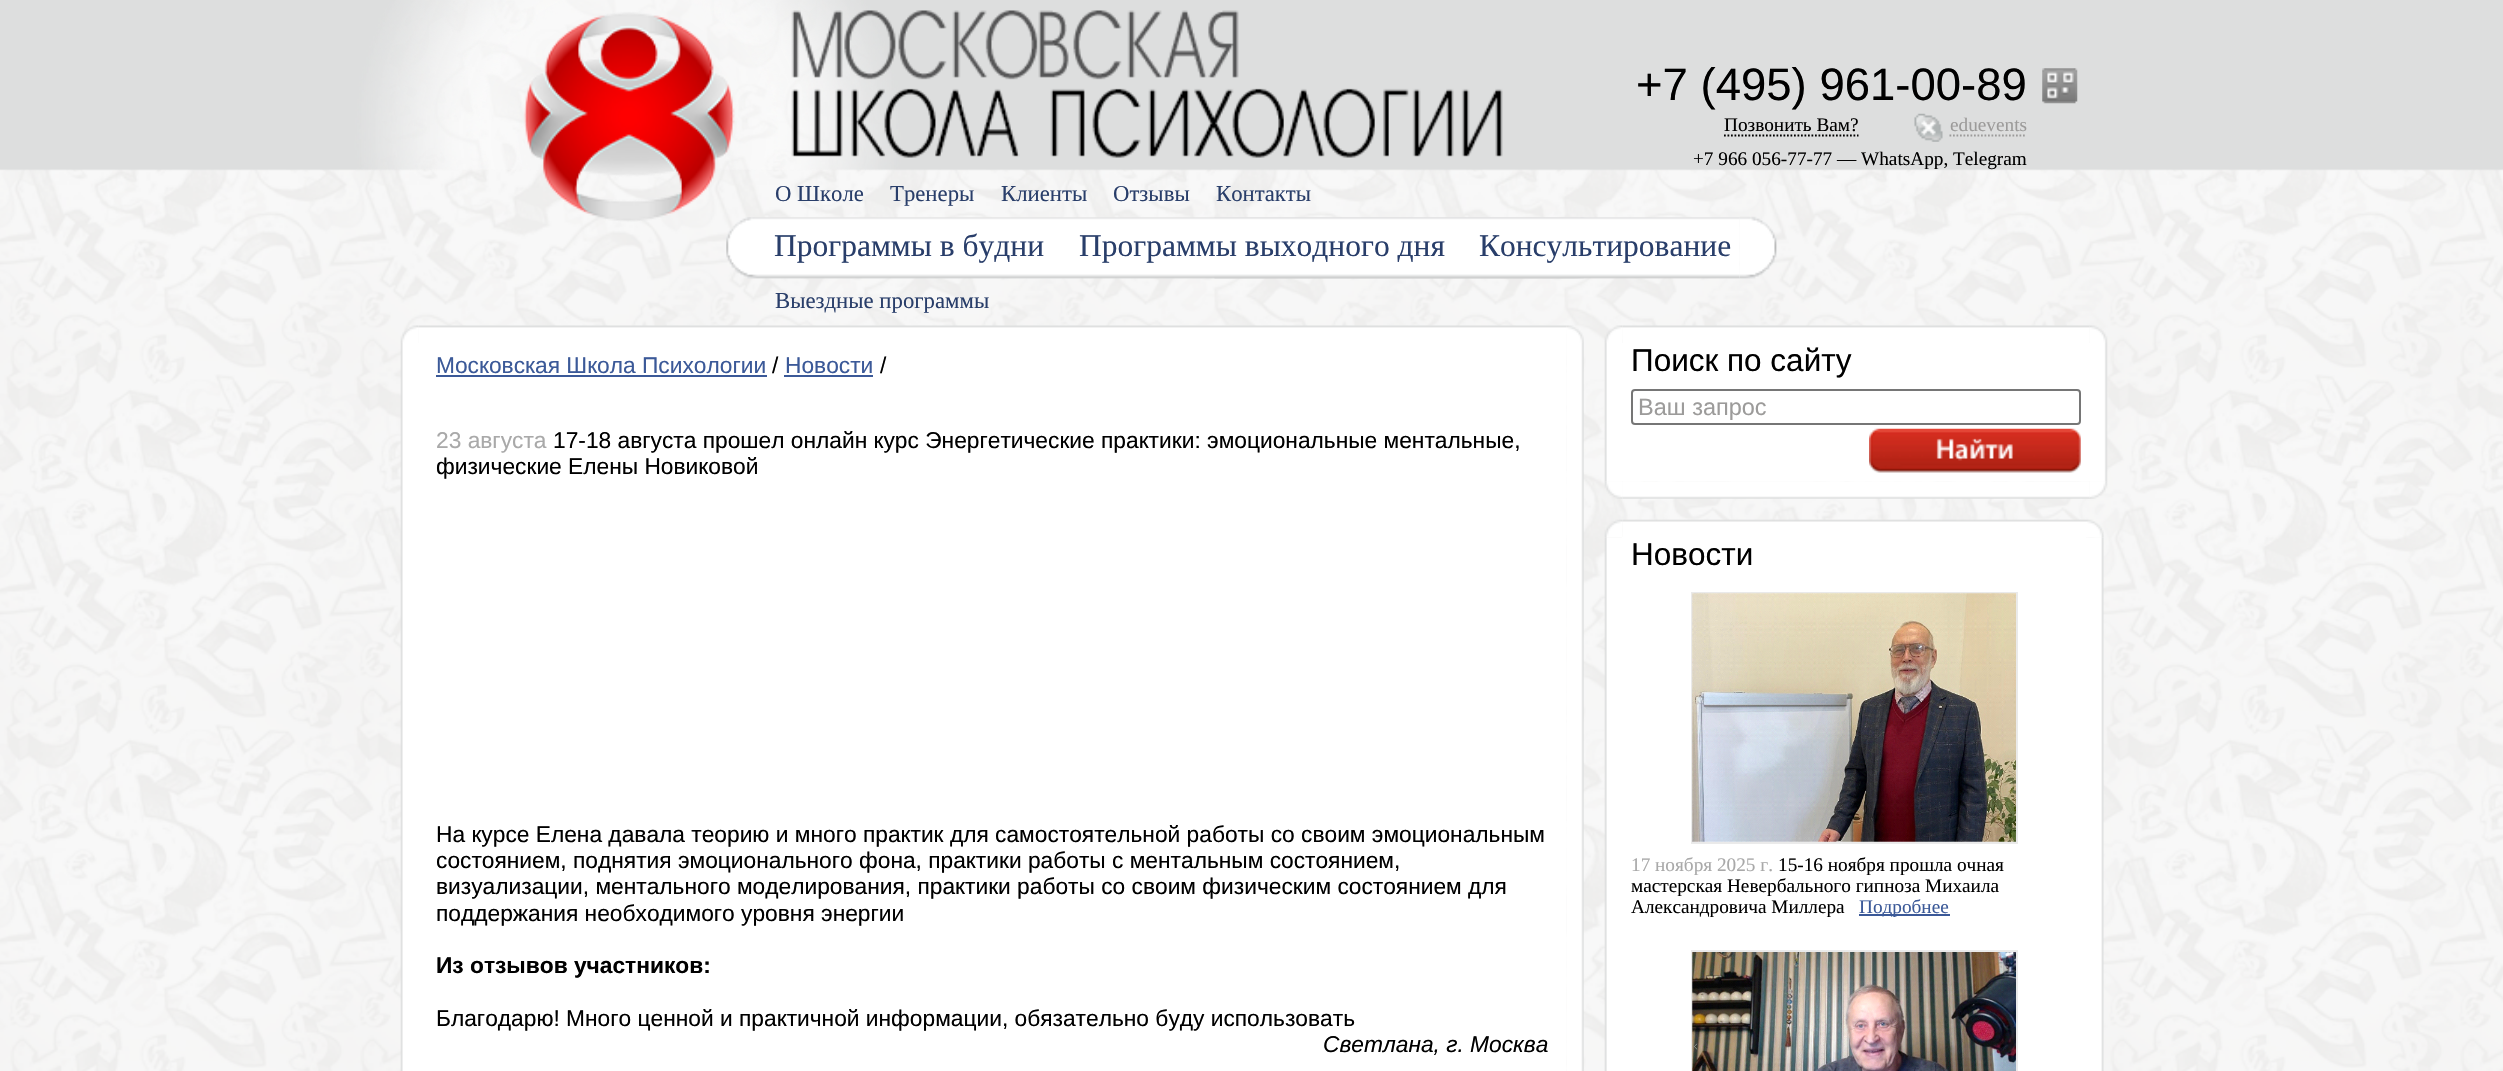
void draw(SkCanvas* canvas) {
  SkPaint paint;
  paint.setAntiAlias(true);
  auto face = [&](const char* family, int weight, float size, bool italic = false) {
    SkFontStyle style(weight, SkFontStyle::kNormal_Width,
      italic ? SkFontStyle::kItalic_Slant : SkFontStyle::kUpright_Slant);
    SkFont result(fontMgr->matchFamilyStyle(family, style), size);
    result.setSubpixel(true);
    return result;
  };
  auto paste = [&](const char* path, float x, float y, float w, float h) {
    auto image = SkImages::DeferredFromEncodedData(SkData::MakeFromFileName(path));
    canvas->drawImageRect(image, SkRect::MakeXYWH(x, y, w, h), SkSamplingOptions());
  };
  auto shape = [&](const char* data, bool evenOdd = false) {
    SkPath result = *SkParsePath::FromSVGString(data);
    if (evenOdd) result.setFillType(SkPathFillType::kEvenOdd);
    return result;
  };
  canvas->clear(0xfff7f7f7);
  paste("img/1.png", 0, 0, 2503, 1071);
  paste("img/2.png", 0, 0, 2503, 222);
  paste("img/3.png", 2042, 68, 36, 36);
  paint.setStroke(true);
  paint.setStrokeWidth(1.8f);
  paint.setColor(0xff000000);
  paint.setPathEffect(SkDashPathEffect::Make({{1.75f, 1.75f}}, 0));
  canvas->drawPath(shape("M1724 135.5H1858.5"), paint);
  paint.setPathEffect(nullptr);
  paste("img/4.png", 1914, 113, 29, 29);
  paint.setColor(0xff9c9b9a);
  paint.setPathEffect(SkDashPathEffect::Make({{1.75f, 1.75f}}, 0));
  canvas->drawPath(shape("M1949.5 135.5H2026.5"), paint);
  paint.setPathEffect(nullptr);
  paste("img/5.png", 726, 217, 860, 62);
  paste("img/6.png", 1214, 217, 526, 62);
  paste("img/7.png", 1739, 216, 38, 63);
  paste("img/8.png", 400, 325, 18, 18);
  paste("img/9.png", 418, 325, 1149, 18);
  paste("img/10.png", 1566, 325, 18, 18);
  paste("img/11.png", 400, 343, 18, 728);
  paint.setStroke(false);
  {
    const struct { float x, y, w, h; SkColor color; } items[] = {
      {418, 343, 1148, 728, 0xffffffff},
      {436, 375, 331, 2, 0xff3b5998},
      {784, 375, 89, 2, 0xff3b5998},
    };
    for (auto [x, y, w, h, color] : items) {
      paint.setColor(color);
      canvas->drawRect(SkRect::MakeXYWH(x, y, w, h), paint);
    }
  }
  paste("img/12.png", 1566, 343, 18, 728);
  paste("img/13.png", 1604, 325, 18, 18);
  paste("img/14.png", 1622, 325, 468, 18);
  paste("img/15.png", 2089, 325, 19, 18);
  paste("img/16.png", 1604, 343, 19, 139);
  paint.setColor(0xffffffff);
  canvas->drawRect(SkRect::MakeXYWH(1622, 343, 468, 138), paint);
  paint.setStroke(true);
  paint.setStrokeWidth(2);
  paint.setColor(0xff767676);
  canvas->drawRoundRect(SkRect::MakeXYWH(1632, 390, 448, 34), 3, 3, paint);
  paste("img/17.png", 1869, 428, 212, 45);
  paste("img/18.png", 2090, 343, 18, 139);
  paste("img/19.png", 1604, 481, 18, 18);
  paste("img/20.png", 1622, 481, 468, 18);
  paste("img/21.png", 2089, 481, 19, 18);
  paste("img/22.png", 1604, 519, 18, 18);
  paste("img/23.png", 1622, 519, 464, 18);
  paste("img/24.png", 2086, 519, 18, 18);
  paste("img/25.png", 1604, 537, 18, 534);
  paint.setStroke(false);
  paint.setColor(0xffffffff);
  canvas->drawRect(SkRect::MakeXYWH(1622, 537, 464, 534), paint);
  paint.setStroke(true);
  paint.setColor(0xffeaeaea);
  canvas->drawRect(SkRect::MakeXYWH(1692, 593, 325, 250), paint);
  paste("img/26.png", 1692, 593, 324, 249);
  paint.setStroke(false);
  paint.setColor(0xff3b5998);
  canvas->drawRect(SkRect::MakeXYWH(1859, 914, 91, 2), paint);
  paint.setStroke(true);
  paint.setColor(0xffeaeaea);
  canvas->drawRect(SkRect::MakeXYWH(1692, 951, 325, 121), paint);
  paste("img/27.png", 1692, 952, 324, 119);
  paste("img/28.png", 2086, 537, 18, 534);
  auto f0 = face("Liberation Sans", 400, 45.5f);
  paint.setStroke(false);
  paint.setColor(0xff000000);
  canvas->drawString("+7 (495) 961-00-89", 1636, 100, f0, paint);
  auto f1 = face("Liberation Serif", 400, 19.25f);
  canvas->drawString("Позвонить Вам?", 1724, 131, f1, paint);
  paint.setColor(0xff9c9b9a);
  canvas->drawString("eduevents", 1950, 131, f1, paint);
  paint.setColor(0xff000000);
  canvas->drawString("+7 966 056-77-77 — WhatsApp, Telegram", 1693, 165, f1, paint);
  auto f2 = face("Liberation Serif", 400, 22.75f);
  paint.setColor(0xff293e6a);
  {
    const struct { const char* s; float x, y; } items[] = {
      {"О Школе", 775, 201},
      {"Тренеры", 890, 201},
      {"Клиенты", 1001, 201},
      {"Отзывы", 1113, 201},
      {"Контакты", 1216, 201},
    };
    for (auto [s, x, y] : items) {
      canvas->drawString(s, x, y, f2, paint);
    }
  }
  auto f3 = face("Liberation Serif", 400, 31.5f);
  {
    const struct { const char* s; float x, y; } items[] = {
      {"Программы в будни", 774, 256},
      {"Программы выходного дня", 1079, 256},
      {"Консультирование", 1479, 256},
    };
    for (auto [s, x, y] : items) {
      canvas->drawString(s, x, y, f3, paint);
    }
  }
  canvas->drawString("Выездные программы", 775, 308, f2, paint);
  auto f4 = face("Liberation Sans", 400, 22.75f);
  paint.setColor(0xff3b5998);
  canvas->drawString("Московская Школа Психологии", 436, 373, f4, paint);
  paint.setColor(0xff000000);
  canvas->drawString("/", 772, 373, f4, paint);
  paint.setColor(0xff3b5998);
  canvas->drawString("Новости", 785, 373, f4, paint);
  paint.setColor(0xff000000);
  canvas->drawString("/", 880, 373, f4, paint);
  paint.setColor(0xffa9a9a9);
  canvas->drawString("23 августа", 436, 448, f4, paint);
  paint.setColor(0xff000000);
  {
    const struct { const char* s; float x, y; } items[] = {
      {"17-18 августа прошел онлайн курс Энергетические практики: эмоциональные ментальные,", 553, 448},
      {"физические Елены Новиковой", 436, 474},
      {"На курсе Елена давала теорию и много практик для самостоятельной работы со своим эмоциональным", 436, 842},
      {"состоянием, поднятия эмоционального фона, практики работы с ментальным состоянием,", 436, 868},
      {"визуализации, ментального моделирования, практики работы со своим физическим состоянием для", 436, 894},
      {"поддержания необходимого уровня энергии", 436, 921},
    };
    for (auto [s, x, y] : items) {
      canvas->drawString(s, x, y, f4, paint);
    }
  }
  auto f5 = face("Liberation Sans", 700, 22.75f);
  canvas->drawString("Из отзывов участников:", 436, 973, f5, paint);
  canvas->drawString("Благодарю! Много ценной и практичной информации, обязательно буду использовать", 436, 1026, f4, paint);
  auto f6 = face("Liberation Sans", 400, 22.75f, true);
  canvas->drawString("Светлана, г. Москва", 1323, 1052, f6, paint);
  auto f7 = face("Liberation Sans", 400, 31.5f);
  canvas->drawString("Поиск по сайту", 1631, 371, f7, paint);
  auto f8 = face("Liberation Sans", 400, 23.5f);
  paint.setColor(0xff9c9b9a);
  canvas->drawString("Ваш запрос", 1638, 415, f8, paint);
  paint.setColor(0xff000000);
  canvas->drawString("Новости", 1631, 565, f7, paint);
  paint.setColor(0xffa9a9a9);
  canvas->drawString("17 ноября 2025 г.", 1631, 871, f1, paint);
  paint.setColor(0xff000000);
  {
    const struct { const char* s; float x, y; } items[] = {
      {"15-16 ноября прошла очная", 1778, 871},
      {"мастерская Невербального гипноза Михаила", 1631, 892},
      {"Александровича Миллера", 1631, 913},
    };
    for (auto [s, x, y] : items) {
      canvas->drawString(s, x, y, f1, paint);
    }
  }
  paint.setColor(0xff3b5998);
  canvas->drawString("Подробнее", 1859, 913, f1, paint);
}
